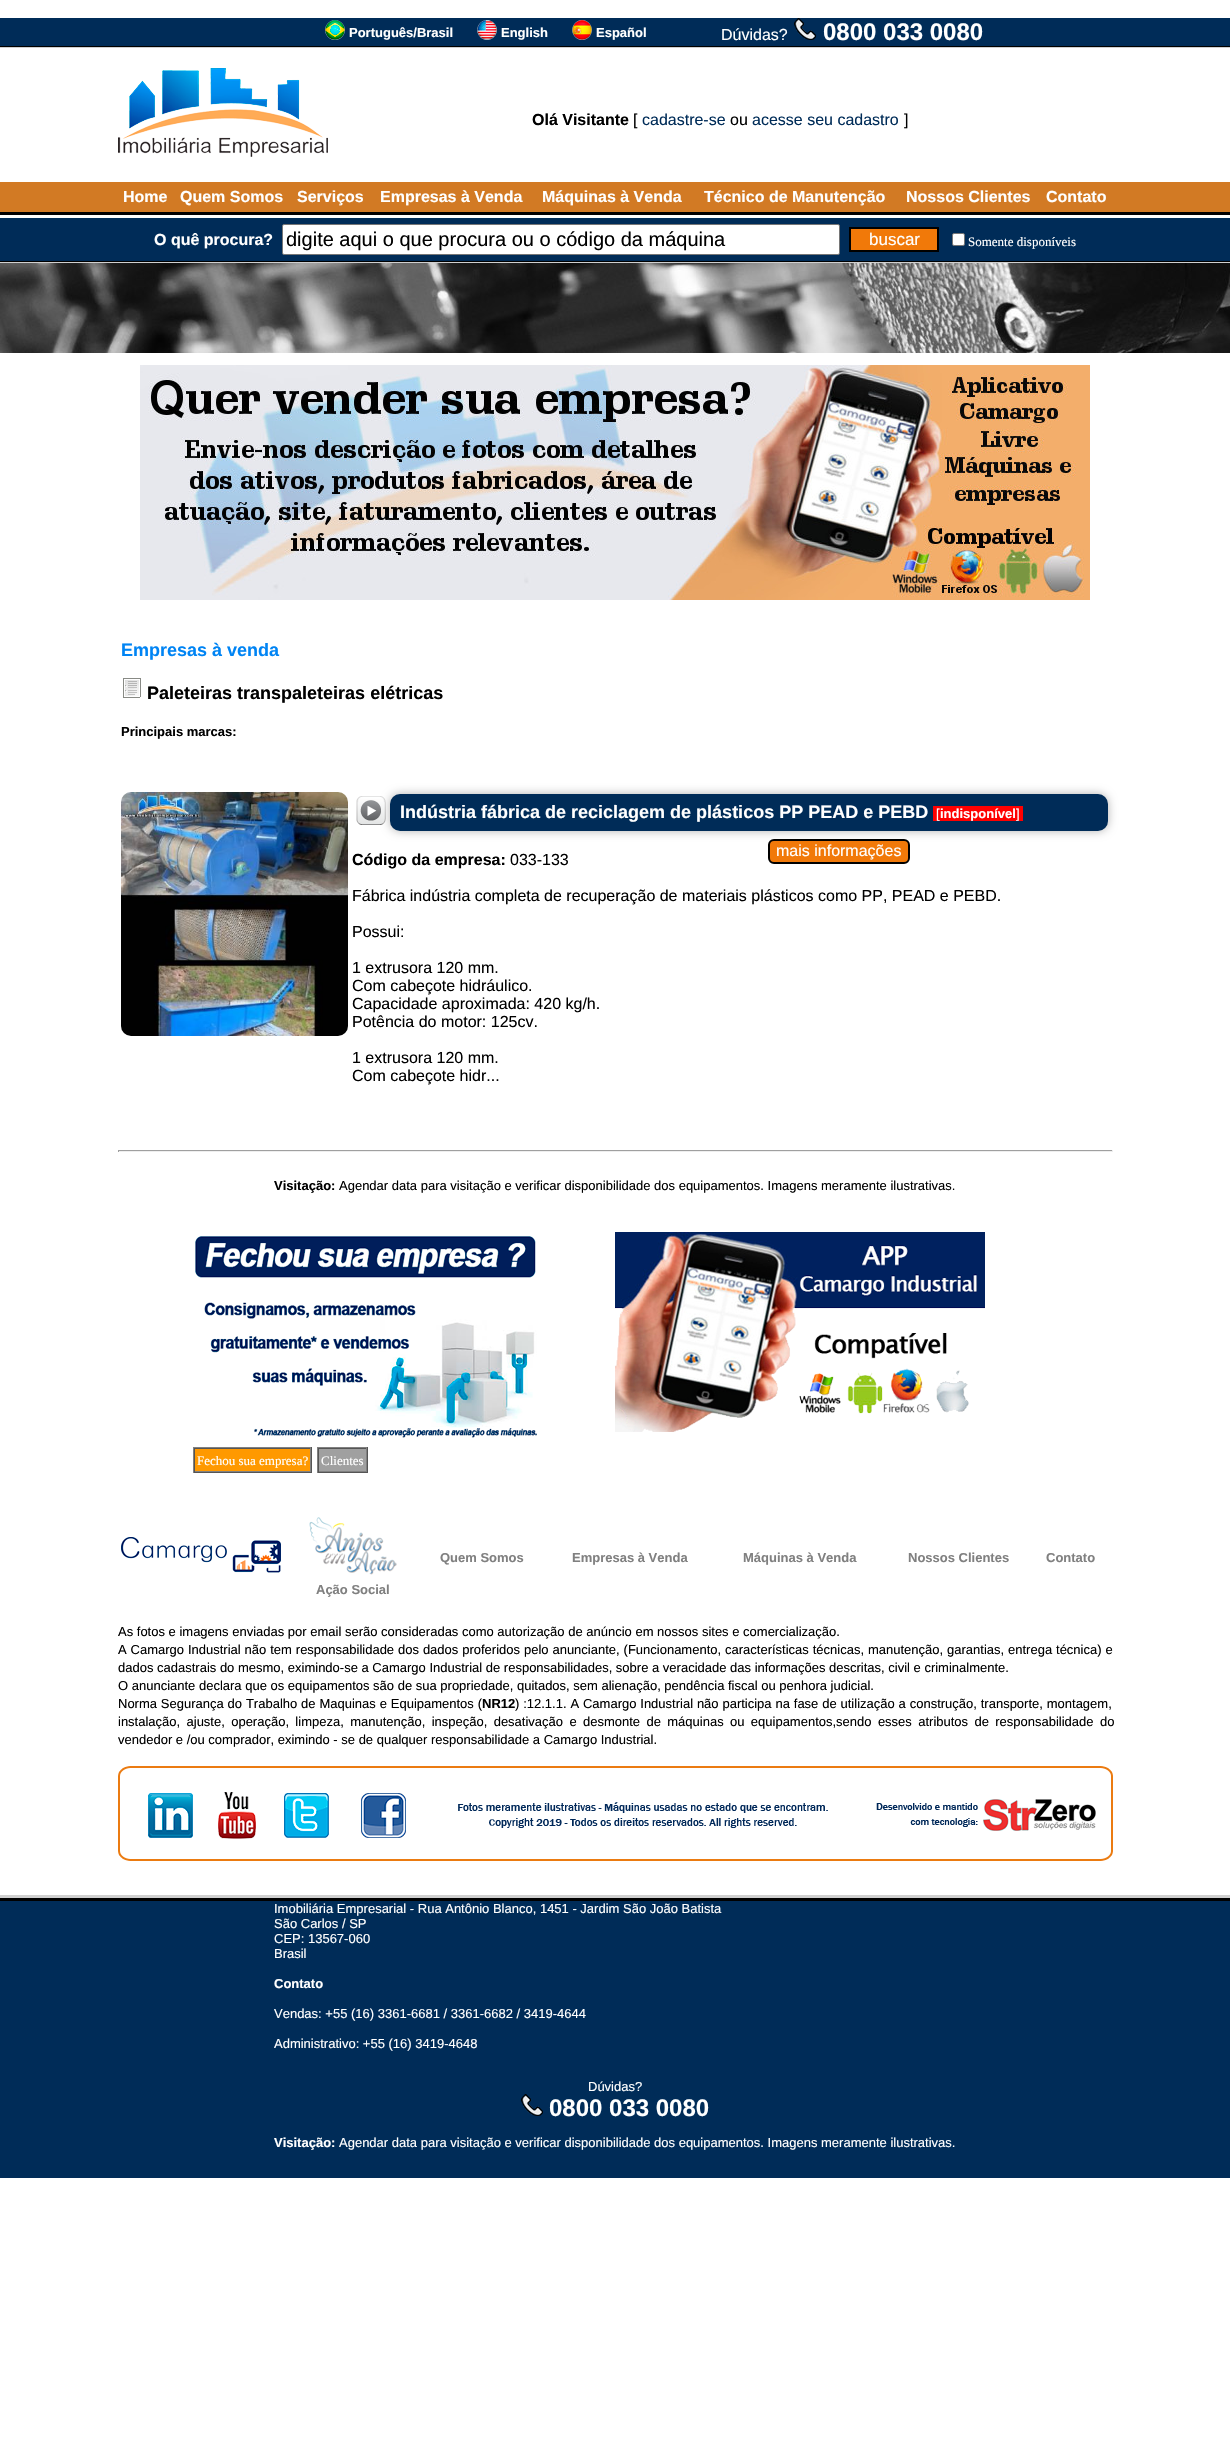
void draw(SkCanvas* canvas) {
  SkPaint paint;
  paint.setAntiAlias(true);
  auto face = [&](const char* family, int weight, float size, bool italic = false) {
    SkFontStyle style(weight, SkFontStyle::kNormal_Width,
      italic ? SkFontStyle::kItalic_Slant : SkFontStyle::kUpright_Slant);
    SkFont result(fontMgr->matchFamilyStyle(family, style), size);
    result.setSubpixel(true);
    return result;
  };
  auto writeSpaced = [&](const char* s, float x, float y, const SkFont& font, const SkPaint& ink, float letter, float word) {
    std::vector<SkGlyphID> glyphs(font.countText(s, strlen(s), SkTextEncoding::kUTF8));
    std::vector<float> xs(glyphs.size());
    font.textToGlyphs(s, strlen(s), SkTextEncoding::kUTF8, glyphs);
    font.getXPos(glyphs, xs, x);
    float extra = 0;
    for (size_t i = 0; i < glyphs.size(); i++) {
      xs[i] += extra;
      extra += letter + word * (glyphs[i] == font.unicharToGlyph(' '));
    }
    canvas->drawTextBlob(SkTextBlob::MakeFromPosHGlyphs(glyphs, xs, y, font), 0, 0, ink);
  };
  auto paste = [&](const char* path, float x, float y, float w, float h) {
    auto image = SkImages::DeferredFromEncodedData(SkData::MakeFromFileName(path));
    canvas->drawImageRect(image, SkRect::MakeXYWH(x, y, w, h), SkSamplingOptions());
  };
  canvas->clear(0xffffffff);
  paint.setColor(0xff002c58);
  canvas->drawRect(SkRect::MakeXYWH(0, 18, 1230, 28), paint);
  paste("img/1.png", 325, 20, 20, 20);
  paste("img/2.png", 477, 20, 20, 20);
  paste("img/3.png", 572, 20, 20, 20);
  paste("img/4.png", 794, 18, 22, 22);
  paint.setColor(0xff000000);
  canvas->drawRect(SkRect::MakeXYWH(0, 46, 1230, 1), paint);
  paint.setColor(0xffd0d0d0);
  canvas->drawRect(SkRect::MakeXYWH(0, 47, 1230, 1), paint);
  paste("img/5.png", 118, 68, 210, 89);
  {
    const struct { float x, y, w, h; SkColor color; } items[] = {
      {0, 182, 1230, 30, 0xffd27a24},
      {0, 212, 1230, 3, 0xff000000},
      {0, 218, 1230, 43, 0xff002c58},
    };
    for (auto [x, y, w, h, color] : items) {
      paint.setColor(color);
      canvas->drawRect(SkRect::MakeXYWH(x, y, w, h), paint);
    }
  }
  paint.setColor(0xffffffff);
  canvas->drawRoundRect(SkRect::MakeXYWH(282.5f, 224.5f, 557, 30), 1.5f, 1.5f, paint);
  paint.setStroke(true);
  paint.setStrokeWidth(1);
  paint.setColor(0xff767676);
  canvas->drawRoundRect(SkRect::MakeXYWH(282.5f, 224.5f, 557, 30), 1.5f, 1.5f, paint);
  paint.setStroke(false);
  paint.setColor(0xfff17909);
  canvas->drawRect(SkRect::MakeXYWH(850, 228, 88, 23), paint);
  paint.setStroke(true);
  paint.setStrokeWidth(2);
  paint.setColor(0xff000000);
  canvas->drawRect(SkRect::MakeXYWH(850, 228, 88, 23), paint);
  paint.setStroke(false);
  paint.setColor(0xffffffff);
  canvas->drawRoundRect(SkRect::MakeXYWH(952.5f, 233.5f, 12, 12), 1.5f, 1.5f, paint);
  paint.setStroke(true);
  paint.setStrokeWidth(1);
  paint.setColor(0xff767676);
  canvas->drawRoundRect(SkRect::MakeXYWH(952.5f, 233.5f, 12, 12), 1.5f, 1.5f, paint);
  paint.setStroke(false);
  paint.setColor(0xff000000);
  canvas->drawRect(SkRect::MakeXYWH(0, 261, 1230, 1), paint);
  paint.setColor(0xffd0d0d0);
  canvas->drawRect(SkRect::MakeXYWH(0, 262, 1230, 1), paint);
  paste("img/6.png", 0, 263, 1230, 90);
  paste("img/7.png", 140, 365, 950, 235);
  paste("img/8.png", 123, 678, 18, 20);
  paste("img/9.png", 121, 792, 227, 244);
  paint.setColor(0x4d000000);
  paint.setMaskFilter(SkMaskFilter::MakeBlur(kNormal_SkBlurStyle, 5));
  canvas->drawRoundRect(SkRect::MakeXYWH(390, 794, 718, 37), 10, 10, paint);
  paint.setMaskFilter(nullptr);
  paste("img/10.png", 356, 796, 30, 29);
  paint.setColor(0xff002c58);
  canvas->drawRoundRect(SkRect::MakeXYWH(390, 794, 718, 37), 10, 10, paint);
  paint.setColor(0xffff0000);
  canvas->drawRect(SkRect::MakeXYWH(933, 806, 90, 15), paint);
  paint.setColor(0xfff17909);
  canvas->drawRoundRect(SkRect::MakeXYWH(769, 840, 140, 23), 5, 5, paint);
  paint.setStroke(true);
  paint.setStrokeWidth(2);
  paint.setColor(0xff000000);
  canvas->drawRoundRect(SkRect::MakeXYWH(769, 840, 140, 23), 5, 5, paint);
  paint.setStroke(false);
  {
    const struct { float x, y, w, h; SkColor color; } items[] = {
      {118, 1150, 995, 1, 0xff9f9f9f},
      {1112, 1150, 1, 2, 0xffeeeeee},
      {118, 1151, 995, 1, 0xffeeeeee},
      {118, 1150, 1, 2, 0xff9f9f9f},
    };
    for (auto [x, y, w, h, color] : items) {
      paint.setColor(color);
      canvas->drawRect(SkRect::MakeXYWH(x, y, w, h), paint);
    }
  }
  paste("img/11.png", 615, 1232, 370, 200);
  paste("img/12.png", 195, 1236, 342, 202);
  {
    const struct { float x, y, w, h; SkColor color; } items[] = {
      {193, 1447, 119, 1, 0xff808080},
      {311, 1447, 1, 26, 0xff555555},
      {193, 1472, 119, 1, 0xff555555},
      {193, 1447, 1, 26, 0xff808080},
      {195, 1449, 115, 22, 0xffff9900},
      {194, 1448, 117, 1, 0xff555555},
      {310, 1448, 1, 24, 0xff808080},
      {194, 1471, 117, 1, 0xff808080},
      {194, 1448, 1, 24, 0xff555555},
      {317, 1447, 51, 1, 0xff808080},
      {367, 1447, 1, 26, 0xff555555},
      {317, 1472, 51, 1, 0xff555555},
      {317, 1447, 1, 26, 0xff808080},
      {319, 1449, 47, 22, 0xffa0a0a0},
      {318, 1448, 49, 1, 0xff555555},
      {366, 1448, 1, 24, 0xff808080},
      {318, 1471, 49, 1, 0xff808080},
      {318, 1448, 1, 24, 0xff555555},
    };
    for (auto [x, y, w, h, color] : items) {
      paint.setColor(color);
      canvas->drawRect(SkRect::MakeXYWH(x, y, w, h), paint);
    }
  }
  paste("img/13.png", 121, 1537, 160, 36);
  paste("img/14.png", 309, 1517, 88, 58);
  paste("img/15.png", 118, 1766, 995, 95);
  {
    const struct { float x, y, w, h; SkColor color; } items[] = {
      {0, 1895, 1230, 3, 0xffd0d0d0},
      {0, 1898, 1230, 3, 0xff000000},
      {0, 1901, 1230, 277, 0xff002c58},
    };
    for (auto [x, y, w, h, color] : items) {
      paint.setColor(color);
      canvas->drawRect(SkRect::MakeXYWH(x, y, w, h), paint);
    }
  }
  paste("img/4.png", 521, 2094, 22, 22);
  auto f0 = face("Liberation Sans", 700, 13);
  paint.setColor(0xffffffff);
  {
    const struct { const char* s; float x, y; } items[] = {
      {"Português/Brasil", 349, 37},
      {"English", 501, 37},
      {"Español", 596, 37},
    };
    for (auto [s, x, y] : items) {
      canvas->drawString(s, x, y, f0, paint);
    }
  }
  auto f1 = face("Liberation Sans", 400, 16);
  canvas->drawString("Dúvidas?", 721, 40, f1, paint);
  auto f2 = face("Liberation Sans", 700, 24);
  canvas->drawString("0800 033 0080", 823, 40, f2, paint);
  auto f3 = face("Liberation Sans", 700, 16);
  paint.setColor(0xff000000);
  canvas->drawString("Olá Visitante", 532, 125, f3, paint);
  canvas->drawString("[", 633, 125, f1, paint);
  paint.setColor(0xff002c58);
  canvas->drawString("cadastre-se", 642, 125, f1, paint);
  paint.setColor(0xff000000);
  canvas->drawString("ou", 730, 125, f1, paint);
  paint.setColor(0xff002c58);
  canvas->drawString("acesse seu cadastro", 752, 125, f1, paint);
  paint.setColor(0xff000000);
  canvas->drawString("]", 904, 125, f1, paint);
  paint.setColor(0xffffffff);
  {
    const struct { const char* s; float x, y; } items[] = {
      {"Home", 123, 202},
      {"Quem Somos", 180, 202},
      {"Serviços", 297, 202},
      {"Empresas à Venda", 380, 202},
      {"Máquinas à Venda", 542, 202},
      {"Técnico de Manutenção", 704, 202},
      {"Nossos Clientes", 906, 202},
      {"Contato", 1046, 202},
      {"O quê procura?", 154, 245},
    };
    for (auto [s, x, y] : items) {
      canvas->drawString(s, x, y, f3, paint);
    }
  }
  auto f4 = face("Liberation Sans", 400, 20);
  paint.setColor(0xff000000);
  canvas->drawString("digite aqui o que procura ou o código da máquina", 286, 246, f4, paint);
  auto f5 = face("Liberation Sans", 400, 17);
  paint.setColor(0xffffffff);
  canvas->drawString("buscar", 869, 245, f5, paint);
  auto f6 = face("Liberation Serif", 400, 13);
  canvas->drawString("Somente disponíveis", 968, 246, f6, paint);
  auto f7 = face("Liberation Sans", 700, 18);
  paint.setColor(0xff0084f4);
  canvas->drawString("Empresas à venda", 121, 656, f7, paint);
  paint.setColor(0xff000000);
  canvas->drawString("Paleteiras transpaleteiras elétricas", 147, 699, f7, paint);
  canvas->drawString("Principais marcas:", 121, 736, f0, paint);
  paint.setColor(0xffffffff);
  canvas->drawString("Indústria fábrica de reciclagem de plásticos PP PEAD e PEBD", 400, 818, f7, paint);
  auto f8 = face("Liberation Sans", 400, 13);
  canvas->drawString("[", 936, 818, f8, paint);
  canvas->drawString("indisponível", 940, 818, f0, paint);
  canvas->drawString("]", 1016, 818, f8, paint);
  paint.setColor(0xff000000);
  canvas->drawString("Código da empresa:", 352, 865, f3, paint);
  canvas->drawString("033-133", 510, 865, f1, paint);
  paint.setColor(0xffffffff);
  canvas->drawString("mais informações", 776, 856, f1, paint);
  paint.setColor(0xff000000);
  {
    const struct { const char* s; float x, y; } items[] = {
      {"Fábrica indústria completa de recuperação de materiais plásticos como PP, PEAD e PEBD.", 352, 901},
      {"Possui:", 352, 937},
      {"1 extrusora 120 mm.", 352, 973},
      {"Com cabeçote hidráulico.", 352, 991},
      {"Capacidade aproximada: 420 kg/h.", 352, 1009},
      {"Potência do motor: 125cv.", 352, 1027},
      {"1 extrusora 120 mm.", 352, 1063},
      {"Com cabeçote hidr...", 352, 1081},
    };
    for (auto [s, x, y] : items) {
      canvas->drawString(s, x, y, f1, paint);
    }
  }
  canvas->drawString("Visitação:", 274, 1190, f0, paint);
  canvas->drawString("Agendar data para visitação e verificar disponibilidade dos equipamentos. Imagens meramente ilustrativas.", 339, 1190, f8, paint);
  paint.setColor(0xffffffff);
  canvas->drawString("Fechou sua empresa?", 197, 1465, f6, paint);
  canvas->drawString("Clientes", 321, 1465, f6, paint);
  paint.setColor(0xff808080);
  {
    const struct { const char* s; float x, y; } items[] = {
      {"Quem Somos", 440, 1562},
      {"Empresas à Venda", 572, 1562},
      {"Máquinas à Venda", 743, 1562},
      {"Nossos Clientes", 908, 1562},
      {"Contato", 1046, 1562},
      {"Ação Social", 316, 1594},
    };
    for (auto [s, x, y] : items) {
      canvas->drawString(s, x, y, f0, paint);
    }
  }
  paint.setColor(0xff000000);
  canvas->drawString("As fotos e imagens enviadas por email serão consideradas como autorização de anúncio em nossos sites e comercialização.", 118, 1636, f8, paint);
  writeSpaced("A Camargo Industrial não tem responsabilidade dos dados proferidos pelo anunciante, (Funcionamento, características técnicas, manutenção, garantias, entrega técnica) e", 118, 1654, f8, paint, 0, 0.3f);
  canvas->drawString("dados cadastrais do mesmo, eximindo-se a Camargo Industrial de responsabilidades, sobre a veracidade das informações descritas, civil e criminalmente.", 118, 1672, f8, paint);
  canvas->drawString("O anunciante declara que os equipamentos são de sua propriedade, quitados, sem alienação, pendência fiscal ou penhora judicial.", 118, 1690, f8, paint);
  writeSpaced("Norma Segurança do Trabalho de Maquinas e Equipamentos (", 118, 1708, f8, paint, 0, 0.25f);
  canvas->drawString("NR12", 482, 1708, f0, paint);
  writeSpaced(") :12.1.1. A Camargo Industrial não participa na fase de utilização a construção, transporte, montagem,", 515, 1708, f8, paint, 0, 0.25f);
  writeSpaced("instalação, ajuste, operação, limpeza, manutenção, inspeção, desativação e desmonte de máquinas ou equipamentos,sendo esses atributos de responsabilidade do", 118, 1726, f8, paint, 0, 2.75f);
  canvas->drawString("vendedor e /ou comprador, eximindo - se de qualquer responsabilidade a Camargo Industrial.", 118, 1744, f8, paint);
  paint.setColor(0xffffffff);
  {
    const struct { const char* s; float x, y; } items[] = {
      {"Imobiliária Empresarial - Rua Antônio Blanco, 1451 - Jardim São João Batista", 274, 1913},
      {"São Carlos / SP", 274, 1928},
      {"CEP: 13567-060", 274, 1943},
      {"Brasil", 274, 1958},
    };
    for (auto [s, x, y] : items) {
      canvas->drawString(s, x, y, f8, paint);
    }
  }
  canvas->drawString("Contato", 274, 1988, f0, paint);
  {
    const struct { const char* s; float x, y; } items[] = {
      {"Vendas: +55 (16) 3361-6681 / 3361-6682 / 3419-4644", 274, 2018},
      {"Administrativo: +55 (16) 3419-4648", 274, 2048},
      {"Dúvidas?", 588, 2091},
    };
    for (auto [s, x, y] : items) {
      canvas->drawString(s, x, y, f8, paint);
    }
  }
  canvas->drawString("0800 033 0080", 549, 2116, f2, paint);
  canvas->drawString("Visitação:", 274, 2147, f0, paint);
  canvas->drawString("Agendar data para visitação e verificar disponibilidade dos equipamentos. Imagens meramente ilustrativas.", 339, 2147, f8, paint);
}
